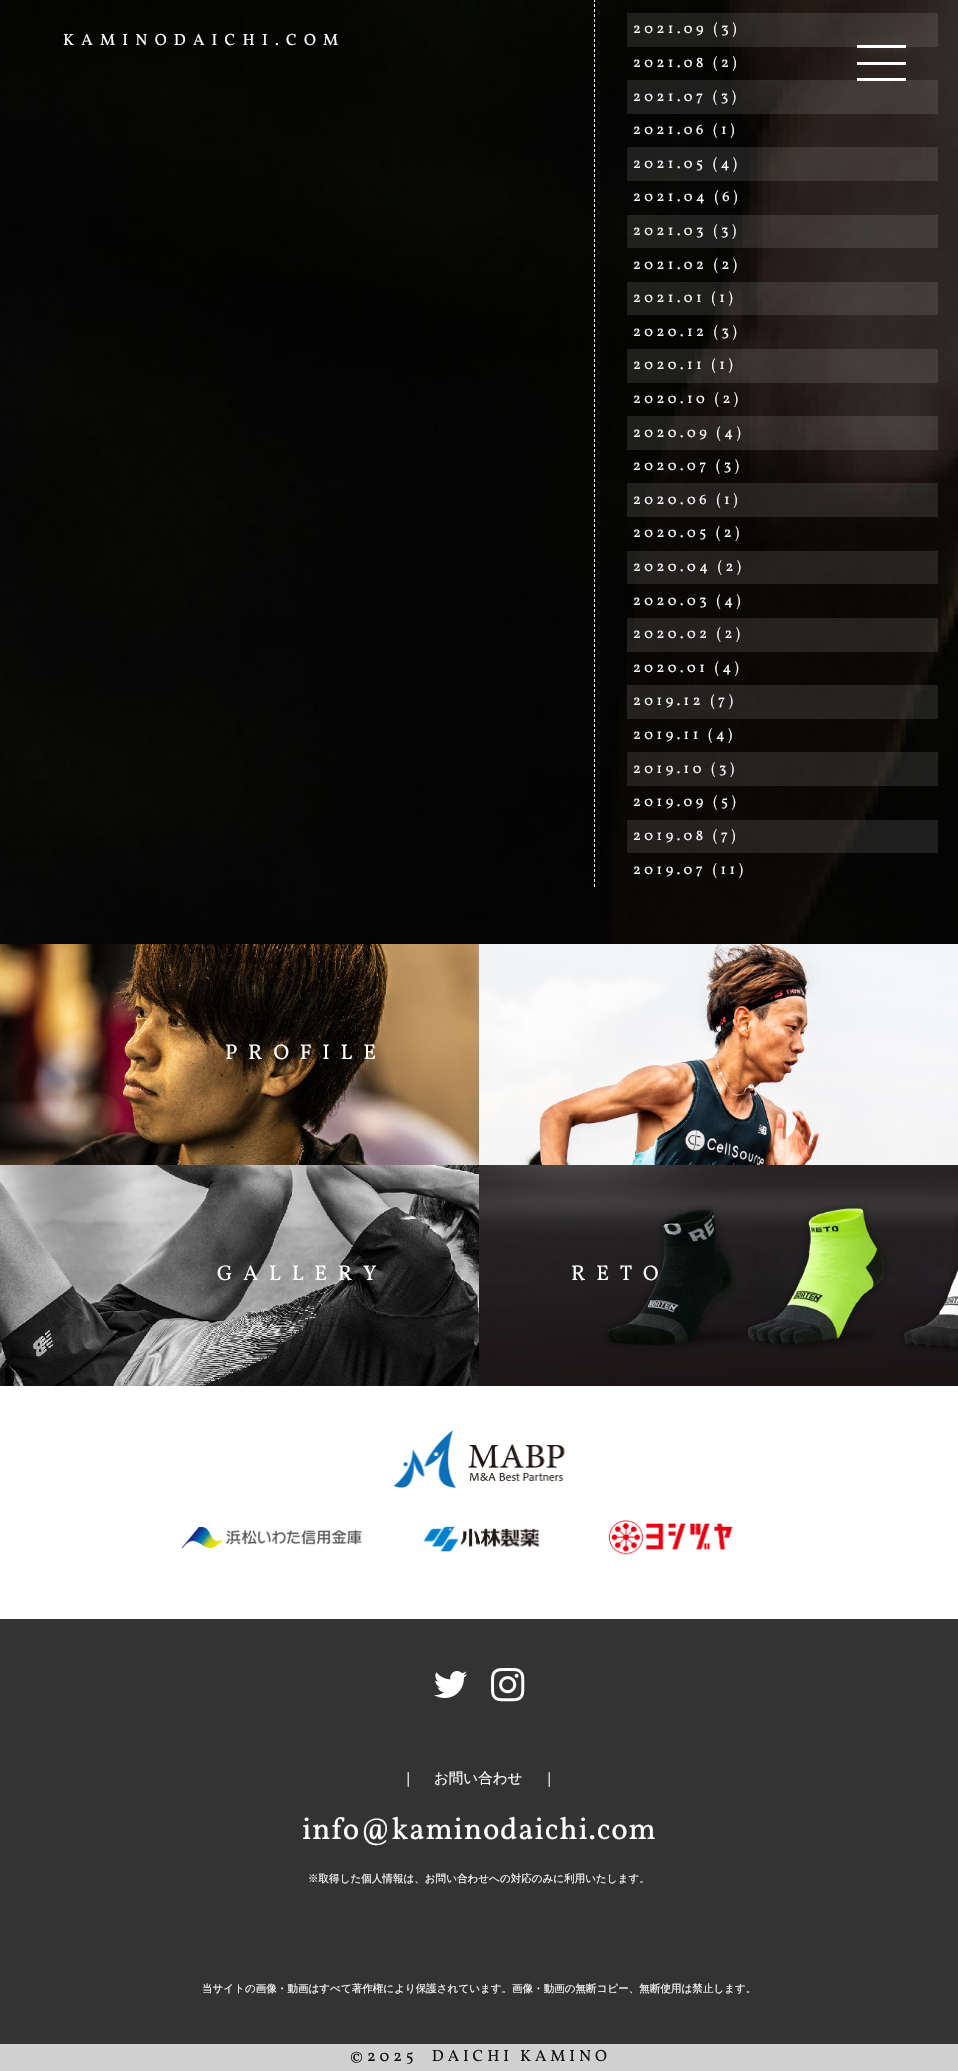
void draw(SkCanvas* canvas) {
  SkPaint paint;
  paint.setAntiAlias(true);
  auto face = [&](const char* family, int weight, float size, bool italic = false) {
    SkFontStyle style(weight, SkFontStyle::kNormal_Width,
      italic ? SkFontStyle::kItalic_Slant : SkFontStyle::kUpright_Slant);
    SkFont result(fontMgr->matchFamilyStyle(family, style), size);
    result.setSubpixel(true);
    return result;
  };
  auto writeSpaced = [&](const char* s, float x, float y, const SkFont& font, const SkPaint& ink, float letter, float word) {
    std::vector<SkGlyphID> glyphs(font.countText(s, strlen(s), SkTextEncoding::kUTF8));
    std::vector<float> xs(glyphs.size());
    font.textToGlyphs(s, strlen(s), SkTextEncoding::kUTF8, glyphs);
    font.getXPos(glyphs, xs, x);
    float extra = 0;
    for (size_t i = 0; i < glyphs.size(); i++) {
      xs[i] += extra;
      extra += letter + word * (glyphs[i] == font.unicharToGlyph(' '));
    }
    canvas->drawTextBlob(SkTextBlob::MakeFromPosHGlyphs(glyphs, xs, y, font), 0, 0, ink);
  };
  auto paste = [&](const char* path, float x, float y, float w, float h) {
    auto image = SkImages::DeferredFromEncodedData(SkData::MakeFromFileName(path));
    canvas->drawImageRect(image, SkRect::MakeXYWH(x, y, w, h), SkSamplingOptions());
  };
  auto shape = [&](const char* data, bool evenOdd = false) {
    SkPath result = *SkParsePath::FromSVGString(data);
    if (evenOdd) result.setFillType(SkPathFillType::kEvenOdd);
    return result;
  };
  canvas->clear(0xffffffff);
  paste("img/1.png", 0, 0, 958, 944);
  paint.setColor(0x1affffff);
  canvas->drawRect(SkRect::MakeXYWH(627, 13, 311, 34), paint);
  paint.setColor(0x4d646464);
  paint.setMaskFilter(SkMaskFilter::MakeBlur(kNormal_SkBlurStyle, 4));
  canvas->drawRect(SkRect::MakeXYWH(856, 44, 51, 5), paint);
  paint.setMaskFilter(nullptr);
  {
    const struct { float x, y, w, h; SkColor color; } items[] = {
      {857, 45, 49, 3, 0xffffffff},
      {857, 62, 49, 3, 0xffffffff},
      {627, 80, 311, 34, 0x1affffff},
      {857, 78, 49, 3, 0xffffffff},
    };
    for (auto [x, y, w, h, color] : items) {
      paint.setColor(color);
      canvas->drawRect(SkRect::MakeXYWH(x, y, w, h), paint);
    }
  }
  paint.setStroke(true);
  paint.setStrokeWidth(1);
  paint.setPathEffect(SkDashPathEffect::Make({{3, 2}}, 0));
  canvas->drawPath(shape("M594.5-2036V887"), paint);
  paint.setPathEffect(nullptr);
  paint.setStroke(false);
  {
    const struct { float x, y, w, h; SkColor color; } items[] = {
      {627, 147, 311, 34, 0x1affffff},
      {627, 215, 311, 33, 0x1affffff},
      {627, 282, 311, 33, 0x1affffff},
      {627, 349, 311, 34, 0x1affffff},
      {627, 416, 311, 34, 0x1affffff},
      {627, 483, 311, 34, 0x1affffff},
      {627, 551, 311, 33, 0x1affffff},
      {627, 618, 311, 34, 0x1affffff},
      {627, 685, 311, 34, 0x1affffff},
      {627, 752, 311, 34, 0x1affffff},
      {627, 820, 311, 33, 0x1affffff},
    };
    for (auto [x, y, w, h, color] : items) {
      paint.setColor(color);
      canvas->drawRect(SkRect::MakeXYWH(x, y, w, h), paint);
    }
  }
  paste("img/2.png", 0, 944, 479, 221);
  paste("img/3.png", 479, 944, 479, 221);
  paste("img/4.png", 0, 1165, 479, 221);
  paste("img/5.png", 479, 1165, 479, 221);
  paste("img/6.png", 393, 1430, 172, 58);
  paste("img/7.png", 182, 1527, 180, 21);
  paste("img/8.png", 423, 1526, 117, 26);
  paste("img/9.png", 608, 1520, 125, 35);
  paint.setColor(0xff333333);
  canvas->drawRect(SkRect::MakeXYWH(0, 1619, 958, 425), paint);
  paste("img/10.png", 434, 1671, 33, 27);
  paste("img/11.png", 491, 1668, 34, 34);
  paint.setColor(0xffd0d0d0);
  canvas->drawRect(SkRect::MakeXYWH(0, 2044, 958, 27), paint);
  auto f0 = face("Vollkorn", 400, 16.25f);
  paint.setColor(0xffffffff);
  writeSpaced("KAMINODAICHI.COM", 63, 45, f0, paint, 7.25f, 0);
  auto f1 = face("Vollkorn", 400, 14.5f);
  {
    const struct { const char* s; float x, y; } items[] = {
      {"2021.09 (3)", 633, 33},
      {"2021.08 (2)", 633, 67},
      {"2021.07 (3)", 633, 101},
      {"2021.06 (1)", 633, 134},
      {"2021.05 (4)", 633, 168},
      {"2021.04 (6)", 633, 201},
      {"2021.03 (3)", 633, 235},
      {"2021.02 (2)", 633, 269},
      {"2021.01 (1)", 633, 302},
      {"2020.12 (3)", 633, 336},
      {"2020.11 (1)", 633, 369},
      {"2020.10 (2)", 633, 403},
      {"2020.09 (4)", 633, 437},
      {"2020.07 (3)", 633, 470},
      {"2020.06 (1)", 633, 504},
      {"2020.05 (2)", 633, 537},
      {"2020.04 (2)", 633, 571},
      {"2020.03 (4)", 633, 605},
      {"2020.02 (2)", 633, 638},
      {"2020.01 (4)", 633, 672},
      {"2019.12 (7)", 633, 705},
      {"2019.11 (4)", 633, 739},
      {"2019.10 (3)", 633, 773},
      {"2019.09 (5)", 633, 806},
      {"2019.08 (7)", 633, 840},
      {"2019.07 (11)", 633, 874},
    };
    for (auto [s, x, y] : items) {
      writeSpaced(s, x, y, f1, paint, 3.5f, 0);
    }
  }
  auto f2 = face("Vollkorn", 400, 21.25f);
  {
    const struct { const char* s; float x, y; } items[] = {
      {"PROFILE", 225, 1059},
      {"GALLERY", 217, 1280},
      {"RETO", 571, 1280},
    };
    for (auto [s, x, y] : items) {
      writeSpaced(s, x, y, f2, paint, 10.75f, 0);
    }
  }
  auto f3 = face("WenQuanYi Zen Hei", 500, 14.5f);
  {
    const struct { const char* s; float x, y; } items[] = {
      {"｜", 401, 1783},
      {"お問い合わせ", 434, 1783},
      {"｜", 542, 1783},
    };
    for (auto [s, x, y] : items) {
      canvas->drawString(s, x, y, f3, paint);
    }
  }
  auto f4 = face("Vollkorn", 400, 30.9f);
  writeSpaced("info@kaminodaichi.com", 302, 1839, f4, paint, 0.8f, 0);
  auto f5 = face("WenQuanYi Zen Hei", 500, 10.55f);
  {
    const struct { const char* s; float x, y; } items[] = {
      {"※取得した個人情報は、お問い合わせへの対応のみに利用いたします。", 308, 1882},
      {"当サイトの画像・動画はすべて著作権により保護されています。", 202, 1992},
      {"画像・動画の無断コピー、無断使用は禁止します。", 512, 1992},
    };
    for (auto [s, x, y] : items) {
      canvas->drawString(s, x, y, f5, paint);
    }
  }
  paint.setColor(0xff111111);
  writeSpaced("©2025  DAICHI KAMINO", 350, 2061, f0, paint, 3.9f, 0);
}
